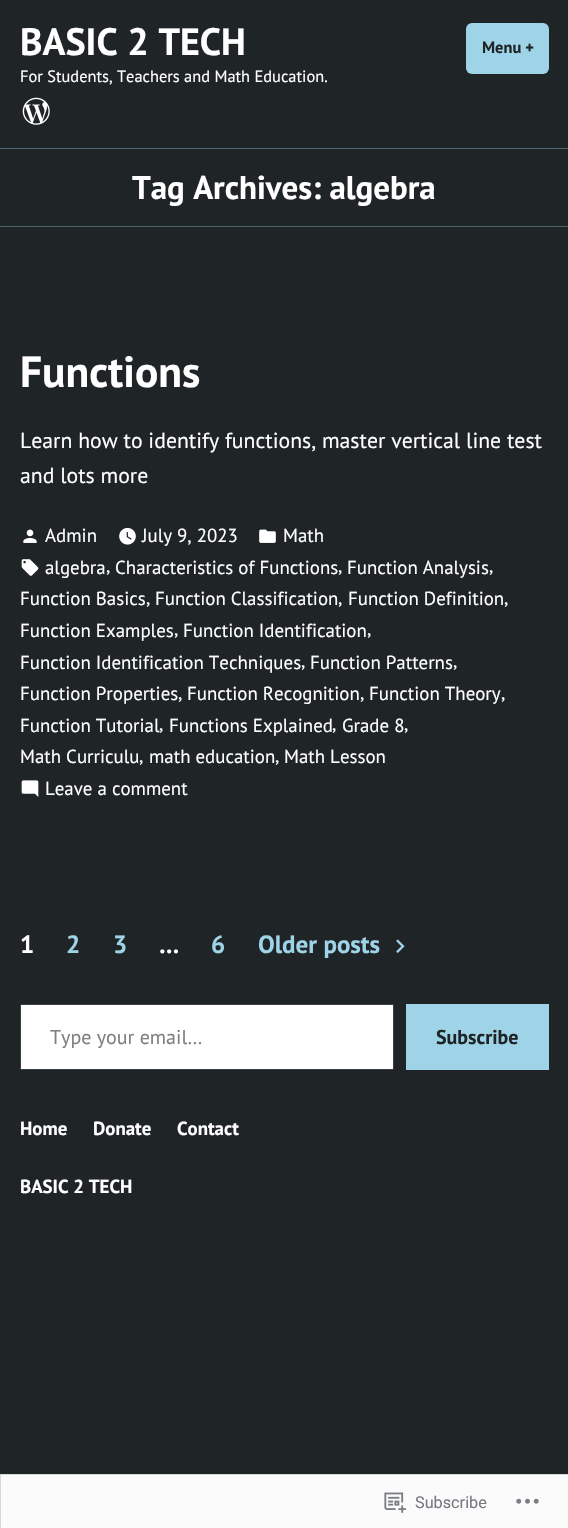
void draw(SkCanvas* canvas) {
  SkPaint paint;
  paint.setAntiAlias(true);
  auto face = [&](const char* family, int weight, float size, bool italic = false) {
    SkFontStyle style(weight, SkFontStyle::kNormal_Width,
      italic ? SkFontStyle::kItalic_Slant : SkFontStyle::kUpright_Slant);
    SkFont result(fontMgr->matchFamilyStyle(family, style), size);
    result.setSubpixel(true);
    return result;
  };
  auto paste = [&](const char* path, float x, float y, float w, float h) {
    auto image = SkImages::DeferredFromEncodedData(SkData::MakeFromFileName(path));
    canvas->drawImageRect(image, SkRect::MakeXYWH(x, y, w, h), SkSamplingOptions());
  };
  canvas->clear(0xff1f2527);
  paint.setColor(0xff9fd3e8);
  canvas->drawRoundRect(SkRect::MakeXYWH(466, 23, 83, 51), 6, 6, paint);
  paste("img/1.png", 22, 97, 28, 28);
  paint.setColor(0xff4b666e);
  canvas->drawRect(SkRect::MakeXYWH(0, 148, 568, 1), paint);
  canvas->drawRect(SkRect::MakeXYWH(0, 226, 568, 1), paint);
  paste("img/2.png", 23, 529, 14, 14);
  paste("img/3.png", 119, 527, 17, 18);
  paste("img/4.png", 259, 529, 17, 14);
  paste("img/5.png", 21, 559, 18, 17);
  paste("img/6.png", 21, 780, 18, 17);
  paste("img/7.png", 396, 939, 9, 14);
  paint.setColor(0xffffffff);
  canvas->drawRect(SkRect::MakeXYWH(20.5f, 1004.5f, 373, 65), paint);
  paint.setStroke(true);
  paint.setStrokeWidth(1);
  paint.setColor(0xff364043);
  canvas->drawRect(SkRect::MakeXYWH(20.5f, 1004.5f, 373, 65), paint);
  paint.setStroke(false);
  paint.setColor(0xff9fd3e8);
  canvas->drawRect(SkRect::MakeXYWH(406, 1004, 143, 66), paint);
  paint.setColor(0xfffbfbfb);
  canvas->drawRect(SkRect::MakeXYWH(0.5f, 1474.5f, 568, 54), paint);
  paint.setStroke(true);
  paint.setColor(0xffd8d8da);
  canvas->drawRect(SkRect::MakeXYWH(0.5f, 1474.5f, 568, 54), paint);
  paste("img/8.png", 384, 1492, 22, 21);
  paste("img/9.png", 516, 1498, 23, 6);
  auto f0 = face("PT Sans", 700, 38);
  paint.setStroke(false);
  paint.setColor(0xffffffff);
  canvas->drawString("BASIC 2 TECH", 20, 55, f0, paint);
  auto f1 = face("PT Sans", 700, 16.4f);
  paint.setColor(0xff1f2527);
  canvas->drawString("Menu +", 482, 53, f1, paint);
  auto f2 = face("PT Sans", 400, 16.4f);
  paint.setColor(0xffffffff);
  canvas->drawString("For Students, Teachers and Math Education.", 20, 82, f2, paint);
  auto f3 = face("PT Sans", 700, 33);
  canvas->drawString("Tag Archives: algebra", 132, 199, f3, paint);
  auto f4 = face("PT Sans", 700, 43.5f);
  canvas->drawString("Functions", 20, 387, f4, paint);
  auto f5 = face("PT Sans", 400, 21.75f);
  canvas->drawString("Learn how to identify functions, master vertical line test", 20, 448, f5, paint);
  canvas->drawString("and lots more", 20, 483, f5, paint);
  auto f6 = face("PT Sans", 400, 18.9f);
  {
    const struct { const char* s; float x, y; } items[] = {
      {"Admin", 45, 542},
      {"July 9, 2023", 142, 542},
      {"Math", 283, 542},
      {"algebra", 45, 574},
      {",", 106, 572},
      {"Characteristics of Functions", 115, 574},
      {",", 338, 572},
      {"Function Analysis", 347, 574},
      {",", 489, 572},
      {"Function Basics", 20, 605},
      {",", 146, 604},
      {"Function Classification", 155, 605},
      {",", 338, 604},
      {"Function Definition", 348, 605},
      {",", 504, 604},
      {"Function Examples", 20, 637},
      {",", 174, 635},
      {"Function Identification", 183, 637},
      {",", 367, 635},
      {"Function Identification Techniques", 20, 669},
      {",", 301, 667},
      {"Function Patterns", 310, 669},
      {",", 453, 667},
      {"Function Properties", 20, 700},
      {",", 178, 699},
      {"Function Recognition", 187, 700},
      {",", 360, 699},
      {"Function Theory", 369, 700},
      {",", 501, 699},
      {"Function Tutorial", 20, 732},
      {",", 159, 730},
      {"Functions Explained", 169, 732},
      {",", 332, 730},
      {"Grade 8", 342, 732},
      {",", 404, 730},
      {"Math Curriculu", 20, 763},
      {",", 139, 762},
      {"math education", 149, 763},
      {",", 275, 762},
      {"Math Lesson", 284, 763},
      {"Leave a comment", 45, 795},
    };
    for (auto [s, x, y] : items) {
      canvas->drawString(s, x, y, f6, paint);
    }
  }
  auto f7 = face("PT Sans", 700, 25);
  canvas->drawString("1", 20, 953, f7, paint);
  paint.setColor(0xff9fd3e8);
  canvas->drawString("2", 66, 953, f7, paint);
  canvas->drawString("3", 113, 953, f7, paint);
  paint.setColor(0xffffffff);
  canvas->drawString("…", 159, 953, f7, paint);
  paint.setColor(0xff9fd3e8);
  canvas->drawString("6", 211, 953, f7, paint);
  canvas->drawString("Older posts", 258, 953, f7, paint);
  auto f8 = face("PT Sans", 400, 20);
  paint.setColor(0xff808080);
  canvas->drawString("Type your email…", 50, 1044, f8, paint);
  auto f9 = face("PT Sans", 700, 20);
  paint.setColor(0xff1f2527);
  canvas->drawString("Subscribe", 436, 1044, f9, paint);
  auto f10 = face("PT Sans", 700, 18.9f);
  paint.setColor(0xffffffff);
  {
    const struct { const char* s; float x, y; } items[] = {
      {"Home", 20, 1135},
      {"Donate", 93, 1135},
      {"Contact", 177, 1135},
      {"BASIC 2 TECH", 20, 1193},
    };
    for (auto [s, x, y] : items) {
      canvas->drawString(s, x, y, f10, paint);
    }
  }
  auto f11 = face("Roboto", 400, 16.25f);
  paint.setColor(0xff767a80);
  canvas->drawString("Subscribe", 415, 1508, f11, paint);
}
